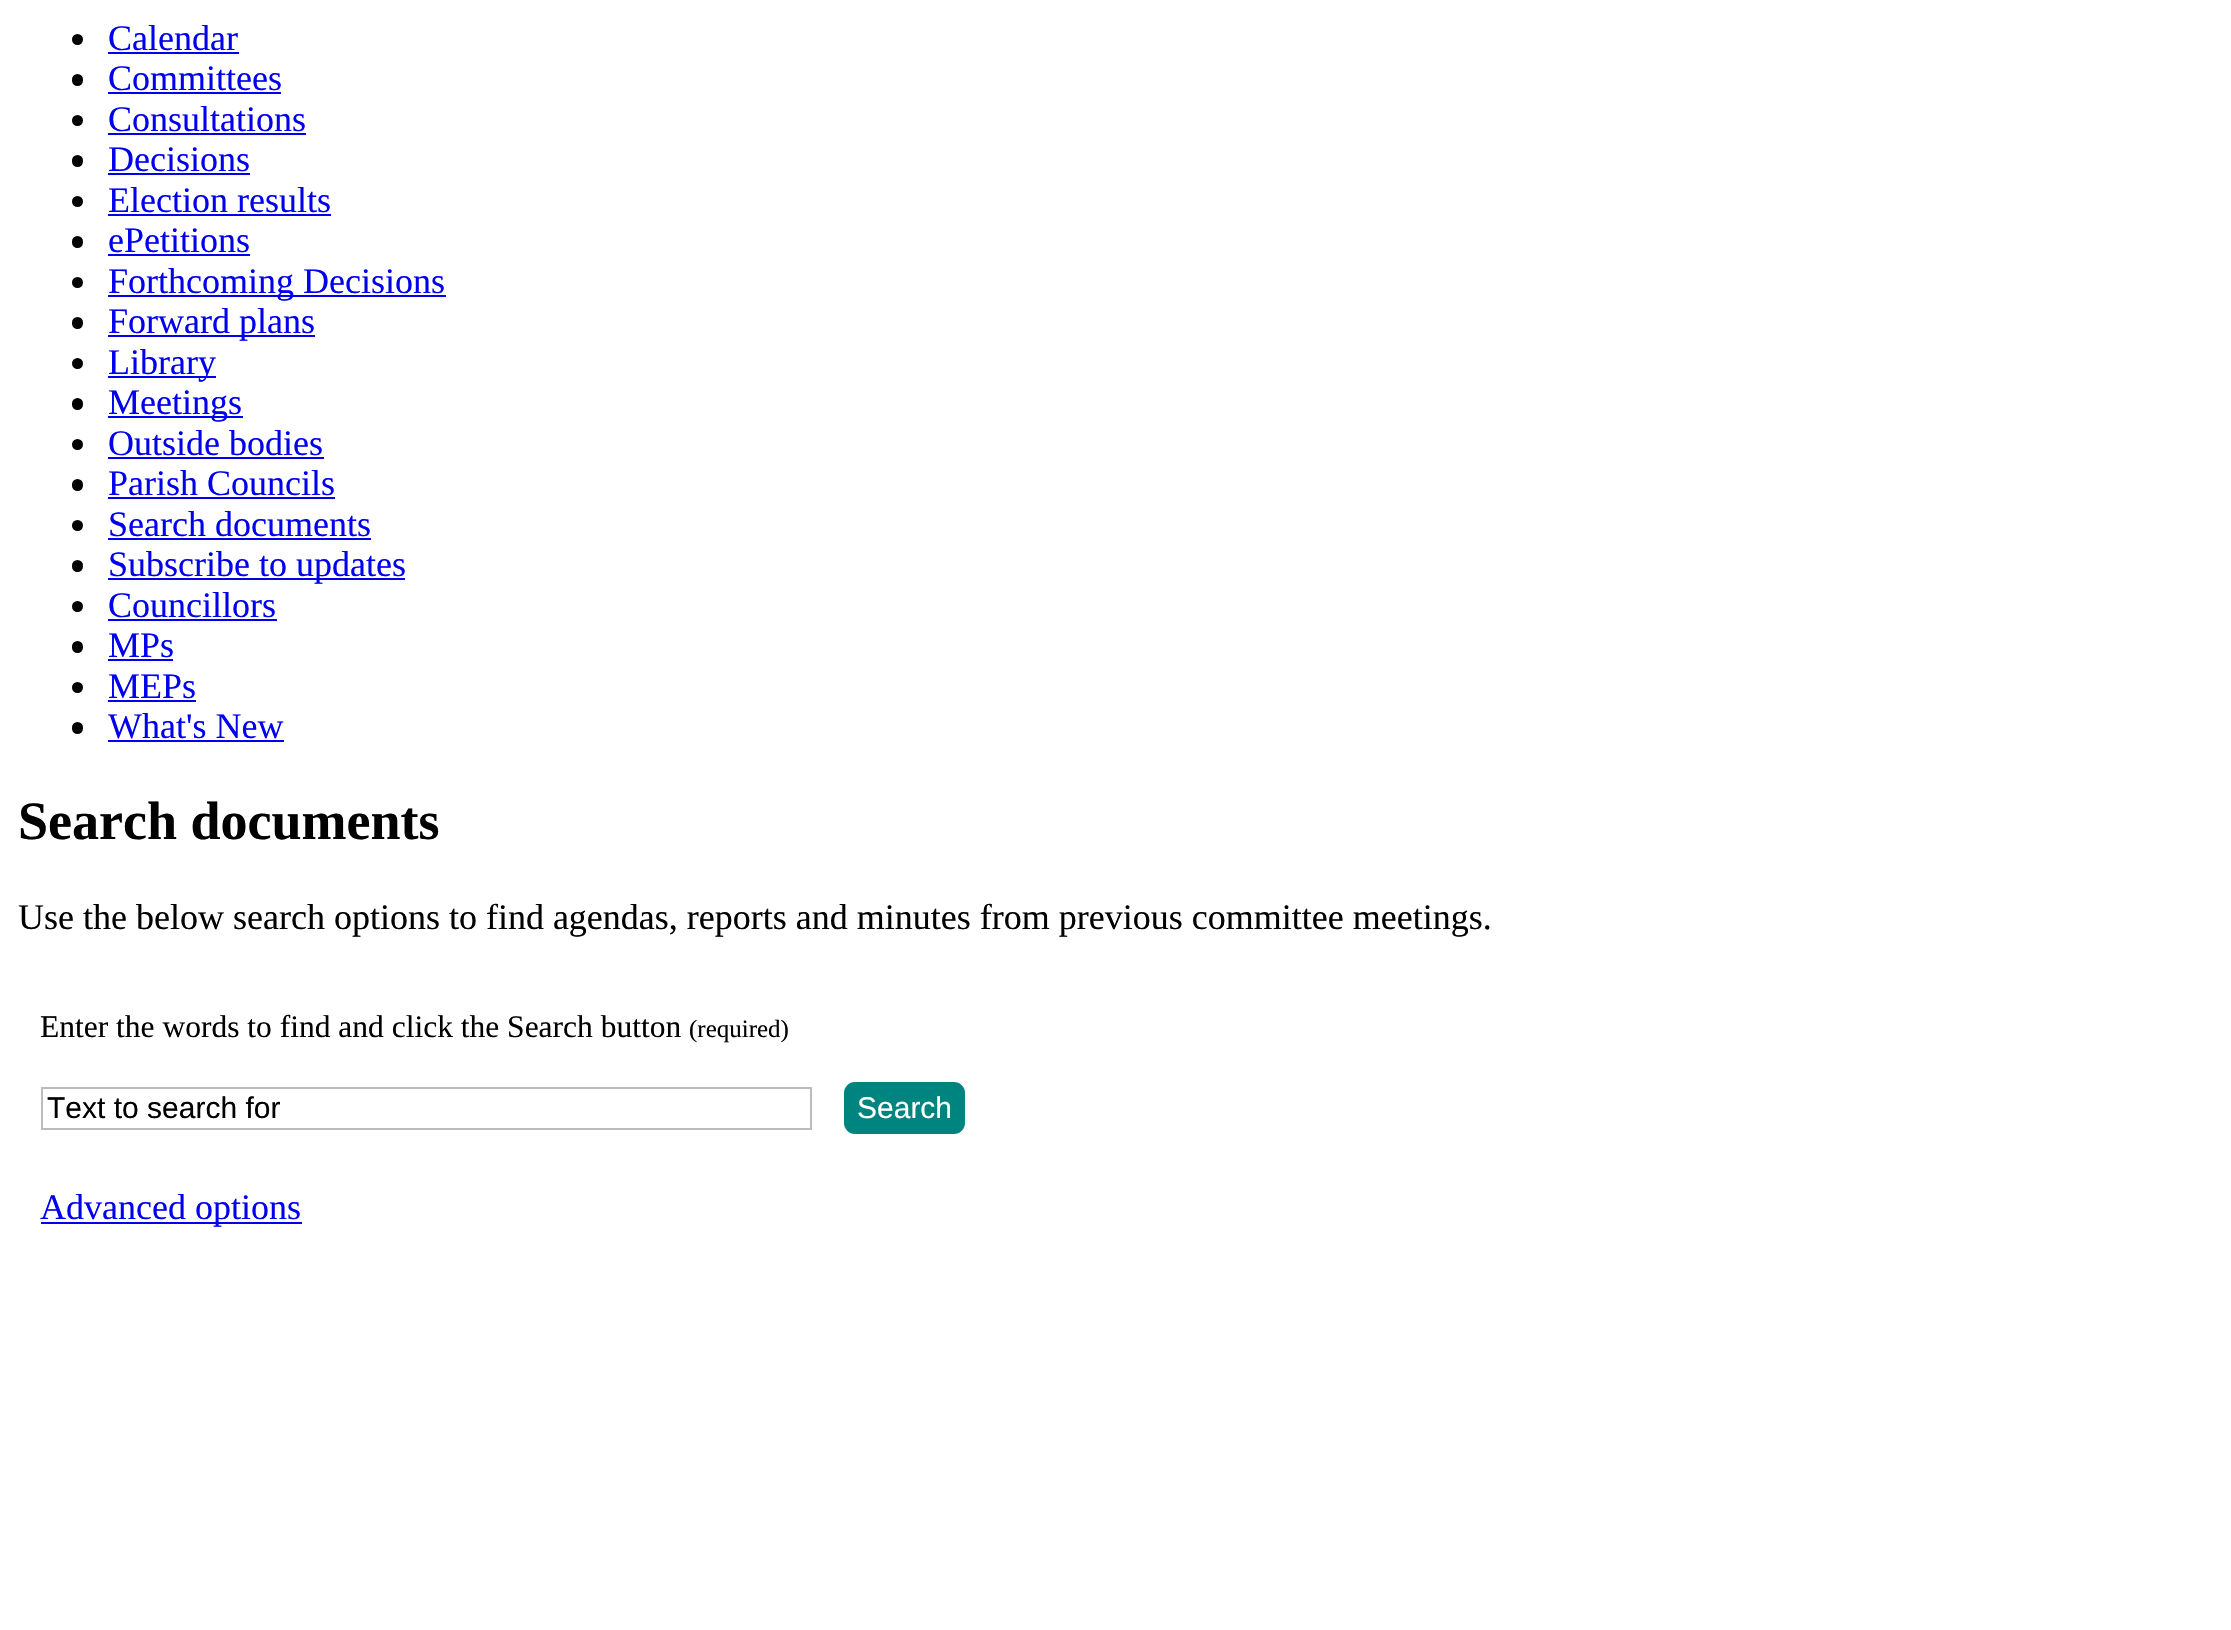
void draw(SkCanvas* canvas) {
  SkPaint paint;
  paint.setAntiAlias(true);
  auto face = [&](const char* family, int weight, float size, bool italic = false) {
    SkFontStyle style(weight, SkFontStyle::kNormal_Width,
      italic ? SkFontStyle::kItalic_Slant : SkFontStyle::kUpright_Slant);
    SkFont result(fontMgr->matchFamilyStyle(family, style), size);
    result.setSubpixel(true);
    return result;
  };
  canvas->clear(0xffffffff);
  paint.setColor(0xff000000);
  canvas->drawCircle(77.5f, 39.5f, 5.5f, paint);
  paint.setColor(0xff0000ee);
  canvas->drawRect(SkRect::MakeXYWH(108, 52, 131, 2), paint);
  paint.setColor(0xff000000);
  canvas->drawRoundRect(SkRect::MakeXYWH(72, 74, 11, 12), 5.5f, 5.5f, paint);
  paint.setColor(0xff0000ee);
  canvas->drawRect(SkRect::MakeXYWH(108, 92, 173, 2), paint);
  paint.setColor(0xff000000);
  canvas->drawCircle(77.5f, 120.5f, 5.5f, paint);
  paint.setColor(0xff0000ee);
  canvas->drawRect(SkRect::MakeXYWH(108, 133, 198, 2), paint);
  paint.setColor(0xff000000);
  canvas->drawRoundRect(SkRect::MakeXYWH(72, 155, 11, 12), 5.5f, 5.5f, paint);
  paint.setColor(0xff0000ee);
  canvas->drawRect(SkRect::MakeXYWH(108, 173, 142, 2), paint);
  paint.setColor(0xff000000);
  canvas->drawCircle(77.5f, 201.5f, 5.5f, paint);
  paint.setColor(0xff0000ee);
  canvas->drawRect(SkRect::MakeXYWH(108, 214, 223, 2), paint);
  paint.setColor(0xff000000);
  canvas->drawRoundRect(SkRect::MakeXYWH(72, 236, 11, 12), 5.5f, 5.5f, paint);
  paint.setColor(0xff0000ee);
  canvas->drawRect(SkRect::MakeXYWH(108, 254, 142, 2), paint);
  paint.setColor(0xff000000);
  canvas->drawCircle(77.5f, 282.5f, 5.5f, paint);
  paint.setColor(0xff0000ee);
  canvas->drawRect(SkRect::MakeXYWH(108, 295, 338, 2), paint);
  paint.setColor(0xff000000);
  canvas->drawRoundRect(SkRect::MakeXYWH(72, 317, 11, 12), 5.5f, 5.5f, paint);
  paint.setColor(0xff0000ee);
  canvas->drawRect(SkRect::MakeXYWH(108, 335, 207, 2), paint);
  paint.setColor(0xff000000);
  canvas->drawCircle(77.5f, 363.5f, 5.5f, paint);
  paint.setColor(0xff0000ee);
  canvas->drawRect(SkRect::MakeXYWH(108, 376, 108, 2), paint);
  paint.setColor(0xff000000);
  canvas->drawRoundRect(SkRect::MakeXYWH(72, 398, 11, 12), 5.5f, 5.5f, paint);
  paint.setColor(0xff0000ee);
  canvas->drawRect(SkRect::MakeXYWH(108, 416, 135, 2), paint);
  paint.setColor(0xff000000);
  canvas->drawCircle(77.5f, 444.5f, 5.5f, paint);
  paint.setColor(0xff0000ee);
  canvas->drawRect(SkRect::MakeXYWH(108, 457, 216, 2), paint);
  paint.setColor(0xff000000);
  canvas->drawRoundRect(SkRect::MakeXYWH(72, 479, 11, 12), 5.5f, 5.5f, paint);
  paint.setColor(0xff0000ee);
  canvas->drawRect(SkRect::MakeXYWH(108, 497, 227, 2), paint);
  paint.setColor(0xff000000);
  canvas->drawCircle(77.5f, 525.5f, 5.5f, paint);
  paint.setColor(0xff0000ee);
  canvas->drawRect(SkRect::MakeXYWH(108, 538, 263, 2), paint);
  paint.setColor(0xff000000);
  canvas->drawRoundRect(SkRect::MakeXYWH(72, 560, 11, 12), 5.5f, 5.5f, paint);
  paint.setColor(0xff0000ee);
  canvas->drawRect(SkRect::MakeXYWH(108, 578, 297, 2), paint);
  paint.setColor(0xff000000);
  canvas->drawCircle(77.5f, 606.5f, 5.5f, paint);
  paint.setColor(0xff0000ee);
  canvas->drawRect(SkRect::MakeXYWH(108, 619, 169, 2), paint);
  paint.setColor(0xff000000);
  canvas->drawRoundRect(SkRect::MakeXYWH(72, 641, 11, 12), 5.5f, 5.5f, paint);
  paint.setColor(0xff0000ee);
  canvas->drawRect(SkRect::MakeXYWH(108, 659, 65, 2), paint);
  paint.setColor(0xff000000);
  canvas->drawCircle(77.5f, 687.5f, 5.5f, paint);
  paint.setColor(0xff0000ee);
  canvas->drawRect(SkRect::MakeXYWH(108, 700, 88, 2), paint);
  paint.setColor(0xff000000);
  canvas->drawRoundRect(SkRect::MakeXYWH(72, 722, 11, 12), 5.5f, 5.5f, paint);
  paint.setColor(0xff0000ee);
  canvas->drawRect(SkRect::MakeXYWH(108, 740, 176, 2), paint);
  paint.setStroke(true);
  paint.setStrokeWidth(2);
  paint.setColor(0xffbdbcbc);
  canvas->drawRect(SkRect::MakeXYWH(42, 1088, 769, 41), paint);
  paint.setStroke(false);
  paint.setColor(0xff00847f);
  canvas->drawRoundRect(SkRect::MakeXYWH(845, 1083, 119, 50), 10, 10, paint);
  paint.setStroke(true);
  canvas->drawRoundRect(SkRect::MakeXYWH(845, 1083, 119, 50), 10, 10, paint);
  paint.setStroke(false);
  paint.setColor(0xff0000ee);
  canvas->drawRect(SkRect::MakeXYWH(41, 1222, 261, 2), paint);
  auto f0 = face("Liberation Serif", 400, 36);
  {
    const struct { const char* s; float x, y; } items[] = {
      {"Calendar", 108, 50},
      {"Committees", 108, 90},
      {"Consultations", 108, 131},
      {"Decisions", 108, 171},
      {"Election results", 108, 212},
      {"ePetitions", 108, 252},
      {"Forthcoming Decisions", 108, 293},
      {"Forward plans", 108, 333},
      {"Library", 108, 374},
      {"Meetings", 108, 414},
      {"Outside bodies", 108, 455},
      {"Parish Councils", 108, 495},
      {"Search documents", 108, 536},
      {"Subscribe to updates", 108, 576},
      {"Councillors", 108, 617},
      {"MPs", 108, 657},
      {"MEPs", 108, 698},
      {"What's New", 108, 738},
    };
    for (auto [s, x, y] : items) {
      canvas->drawString(s, x, y, f0, paint);
    }
  }
  auto f1 = face("Liberation Serif", 700, 54);
  paint.setColor(0xff000000);
  canvas->drawString("Search documents", 18, 839, f1, paint);
  canvas->drawString("Use the below search options to find agendas, reports and minutes from previous committee meetings.", 18, 929, f0, paint);
  auto f2 = face("Liberation Serif", 400, 31.5f);
  canvas->drawString("Enter the words to find and click the Search button", 40, 1037, f2, paint);
  auto f3 = face("Liberation Serif", 400, 25);
  canvas->drawString("(required)", 689, 1037, f3, paint);
  auto f4 = face("Liberation Sans", 400, 30);
  canvas->drawString("Text to search for", 47, 1118, f4, paint);
  paint.setColor(0xffffffff);
  canvas->drawString("Search", 857, 1118, f4, paint);
  paint.setColor(0xff0000ee);
  canvas->drawString("Advanced options", 40, 1219, f0, paint);
}
